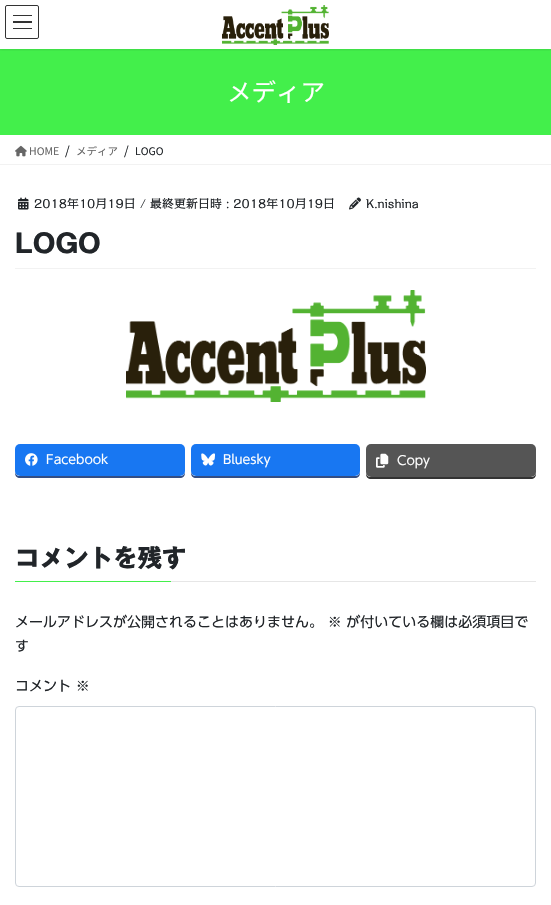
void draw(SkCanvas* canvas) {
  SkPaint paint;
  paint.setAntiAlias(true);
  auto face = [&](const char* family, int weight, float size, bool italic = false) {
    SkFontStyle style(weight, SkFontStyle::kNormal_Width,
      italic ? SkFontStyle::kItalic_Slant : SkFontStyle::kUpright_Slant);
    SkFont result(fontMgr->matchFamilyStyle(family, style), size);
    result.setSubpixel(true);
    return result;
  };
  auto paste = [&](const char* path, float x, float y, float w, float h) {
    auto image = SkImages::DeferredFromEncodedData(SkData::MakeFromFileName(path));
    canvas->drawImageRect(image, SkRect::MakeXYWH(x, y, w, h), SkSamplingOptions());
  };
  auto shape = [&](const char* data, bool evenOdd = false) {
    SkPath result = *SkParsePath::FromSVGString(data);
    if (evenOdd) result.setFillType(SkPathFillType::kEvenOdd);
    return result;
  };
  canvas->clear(0xffffffff);
  paint.setColor(0xff43ef4b);
  canvas->drawRect(SkRect::MakeXYWH(0, 49, 551, 86), paint);
  canvas->save();
  canvas->clipRect(SkRect::MakeXYWH(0, 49, 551, 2));
  paint.setColor(0x1a000000);
  paint.setMaskFilter(SkMaskFilter::MakeBlur(kNormal_SkBlurStyle, 1.5f));
  canvas->drawRect(SkRect::MakeXYWH(0, 1, 551, 49), paint);
  paint.setMaskFilter(nullptr);
  canvas->restore();
  paste("img/1.png", 222, 5, 107, 40);
  {
    const struct { float x, y, w, h; SkColor color; } items[] = {
      {13, 15, 19, 1, 0xff333333},
      {13, 21, 19, 2, 0xff333333},
      {13, 28, 19, 1, 0xff333333},
    };
    for (auto [x, y, w, h, color] : items) {
      paint.setColor(color);
      canvas->drawRect(SkRect::MakeXYWH(x, y, w, h), paint);
    }
  }
  paint.setStroke(true);
  paint.setStrokeWidth(1);
  canvas->drawRoundRect(SkRect::MakeXYWH(5.5f, 5.5f, 33, 33), 1.5f, 1.5f, paint);
  paint.setStroke(false);
  paint.setColor(0xfff2f2f2);
  canvas->drawRect(SkRect::MakeXYWH(0, 164, 551, 1), paint);
  paste("img/2.png", 15, 145, 12, 12);
  canvas->drawRect(SkRect::MakeXYWH(15, 268, 521, 1), paint);
  paste("img/3.png", 18, 197, 11, 13);
  paste("img/4.png", 349, 197, 12, 13);
  paste("img/5.png", 126, 290, 300, 112);
  paint.setColor(0xff344e84);
  canvas->drawPath(shape("M15 471V473C15 476 17 478 20 478H180C183 478 185 476 185 473V471C185 474 183 476 180 476H20C17 476 15 474 15 471Z"), paint);
  paint.setColor(0xff1877f2);
  canvas->drawRoundRect(SkRect::MakeXYWH(15, 444, 170, 32), 5, 5, paint);
  paste("img/6.png", 25, 453, 13, 13);
  paint.setColor(0xff344e84);
  canvas->drawPath(shape("M191 471V473C191 476 193 478 196 478H355C358 478 360 476 360 473V471C360 474 358 476 355 476H196C193 476 191 474 191 471Z"), paint);
  paint.setColor(0xff1877f2);
  canvas->drawRoundRect(SkRect::MakeXYWH(191, 444, 169, 32), 5, 5, paint);
  paste("img/7.png", 201, 453, 14, 13);
  paint.setColor(0xff333333);
  canvas->drawPath(shape("M366 472V474C366 477 368 479 371 479H531C534 479 536 477 536 474V472C536 475 534 477 531 477H371C368 477 366 475 366 472Z"), paint);
  paint.setColor(0xff555555);
  canvas->drawRoundRect(SkRect::MakeXYWH(366, 444, 170, 33), 5, 5, paint);
  paste("img/8.png", 376, 453, 13, 15);
  paint.setColor(0xffe6e6e6);
  canvas->drawRect(SkRect::MakeXYWH(171, 581, 365, 1), paint);
  paint.setColor(0xff43ef4b);
  canvas->drawRect(SkRect::MakeXYWH(15, 581, 156, 1), paint);
  paint.setStroke(true);
  paint.setColor(0xffced4da);
  canvas->drawRoundRect(SkRect::MakeXYWH(15.5f, 706.5f, 520, 180), 3.5f, 3.5f, paint);
  auto f0 = face("Noto Sans JP", 400, 24.5f);
  paint.setStroke(false);
  paint.setColor(0xffffffff);
  canvas->drawString("メディア", 227, 101, f0, paint);
  auto f1 = face("Noto Sans JP", 400, 10.5f);
  paint.setColor(0xff666666);
  canvas->drawString("HOME", 29, 155, f1, paint);
  auto f2 = face("Noto Sans JP", 400, 12);
  paint.setColor(0xff212529);
  canvas->drawString("/", 65, 155, f2, paint);
  paint.setColor(0xff666666);
  canvas->drawString("メディア", 76, 155, f1, paint);
  paint.setColor(0xff212529);
  canvas->drawString("/", 124, 155, f2, paint);
  canvas->drawString("LOGO", 135, 155, f1, paint);
  auto f3 = face("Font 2", 400, 12);
  {
    const struct { const char* s; float x, y; } items[] = {
      {"2018年10月19日", 34, 208},
      {"/ 最終更新日時 : 2018年10月19日", 140, 208},
      {"K.nishina", 366, 208},
    };
    for (auto [s, x, y] : items) {
      canvas->drawString(s, x, y, f3, paint);
    }
  }
  auto f4 = face("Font", 700, 26);
  canvas->drawString("LOGO", 15, 253, f4, paint);
  auto f5 = face("Font", 400, 12.5f);
  paint.setColor(0xffffffff);
  {
    const struct { const char* s; float x, y; } items[] = {
      {"Facebook", 46, 464},
      {"Bluesky", 223, 464},
      {"Copy", 397, 465},
    };
    for (auto [s, x, y] : items) {
      canvas->drawString(s, x, y, f5, paint);
    }
  }
  auto f6 = face("Font", 700, 24.5f);
  paint.setColor(0xff212529);
  canvas->drawString("コメントを残す", 15, 567, f6, paint);
  auto f7 = face("Font", 400, 14);
  {
    const struct { const char* s; float x, y; } items[] = {
      {"メールアドレスが公開されることはありません。 ※ が付いている欄は必須項目で", 15, 627},
      {"す", 15, 651},
      {"コメント ※", 15, 691},
    };
    for (auto [s, x, y] : items) {
      canvas->drawString(s, x, y, f7, paint);
    }
  }
}
